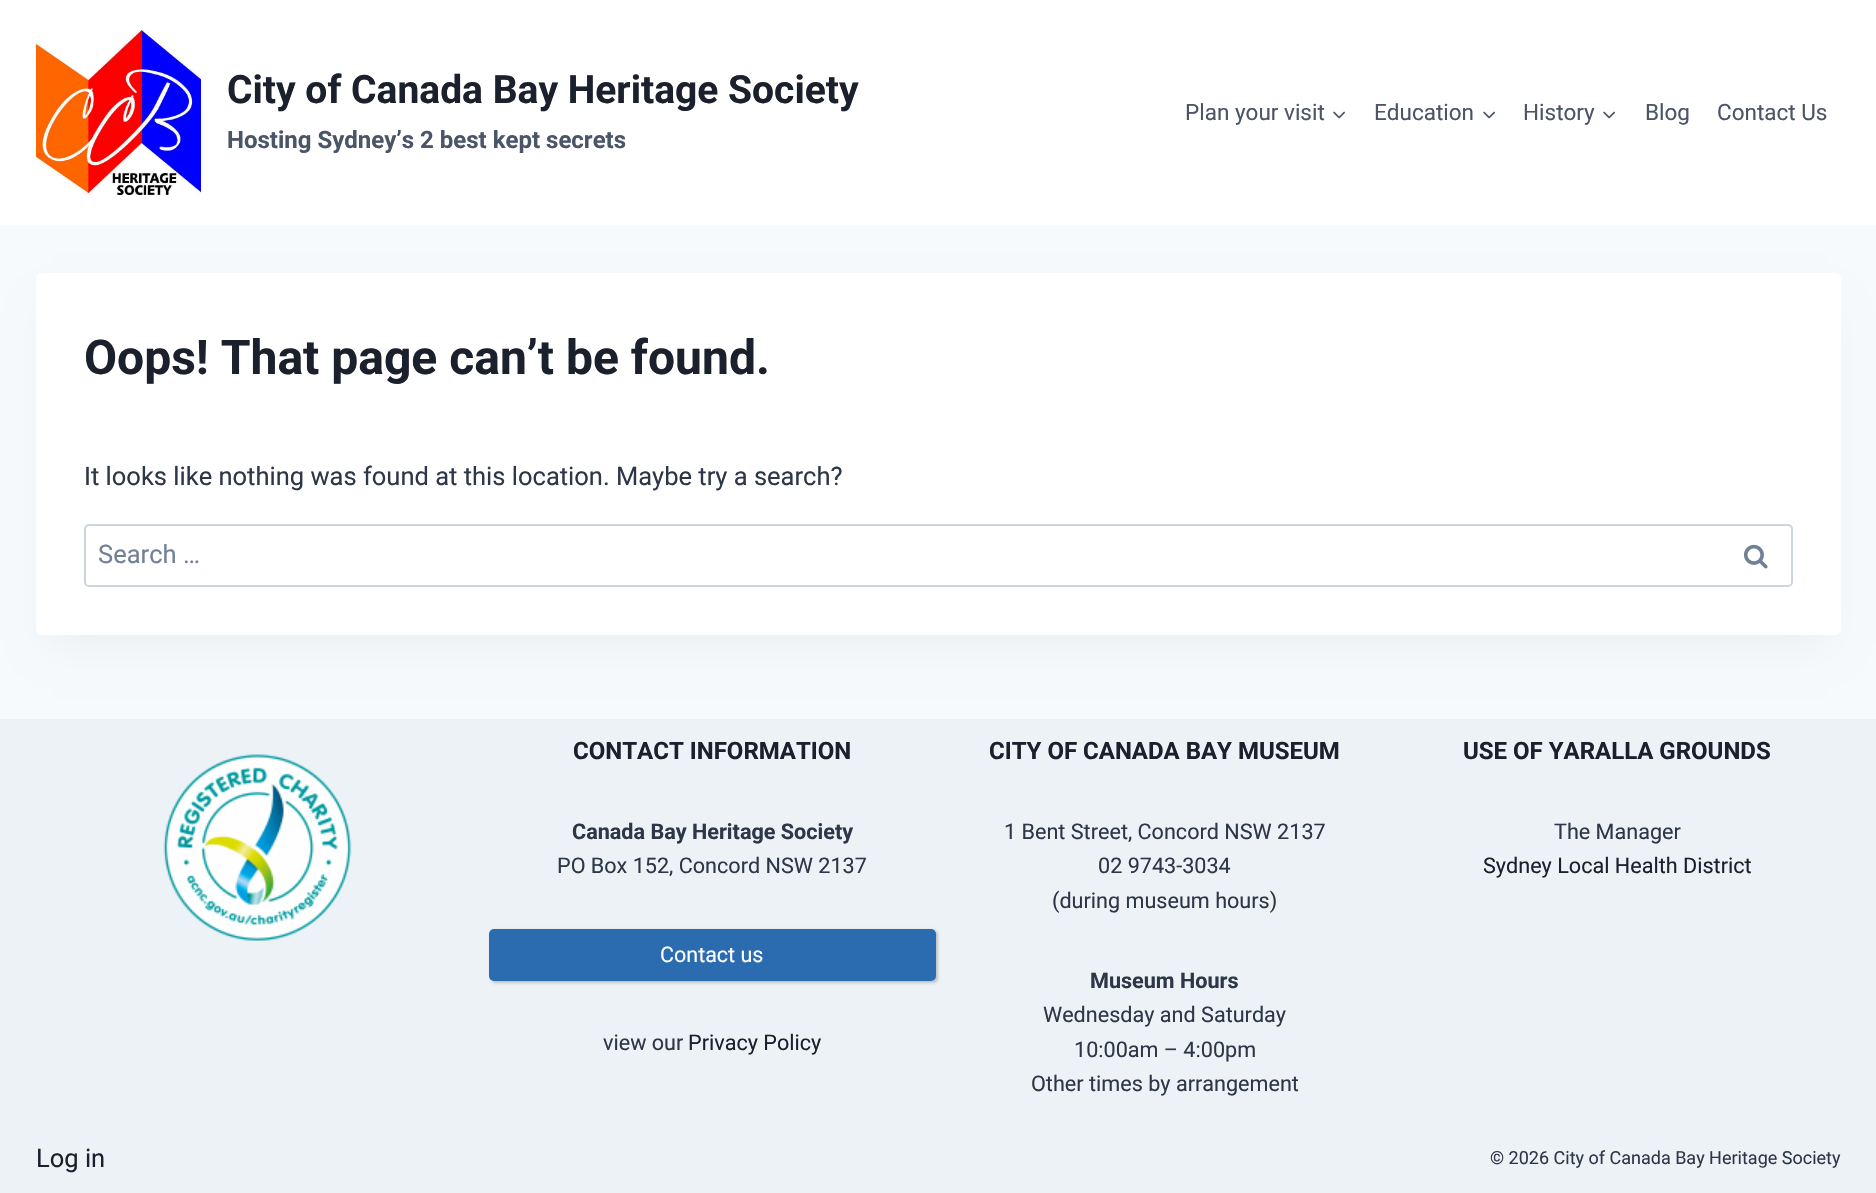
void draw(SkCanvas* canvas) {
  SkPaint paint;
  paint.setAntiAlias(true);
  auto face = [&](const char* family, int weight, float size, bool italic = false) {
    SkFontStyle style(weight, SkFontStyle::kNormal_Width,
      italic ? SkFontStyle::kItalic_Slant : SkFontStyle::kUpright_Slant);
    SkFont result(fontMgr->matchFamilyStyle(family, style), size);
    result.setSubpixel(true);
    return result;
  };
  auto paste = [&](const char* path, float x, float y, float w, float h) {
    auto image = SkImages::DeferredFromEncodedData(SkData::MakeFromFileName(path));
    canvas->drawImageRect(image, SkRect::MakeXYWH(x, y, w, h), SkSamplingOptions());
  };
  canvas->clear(0xfff7fafc);
  paint.setColor(0xffffffff);
  canvas->drawRect(SkRect::MakeXYWH(0, 0, 1876, 225), paint);
  paste("img/1.png", 36, 30, 165, 165);
  paste("img/2.png", 1333, 111, 12, 8);
  paste("img/2.png", 1483, 111, 12, 8);
  paste("img/2.png", 1603, 111, 12, 8);
  paint.setColor(0x0d000000);
  paint.setMaskFilter(SkMaskFilter::MakeBlur(kNormal_SkBlurStyle, 19));
  canvas->drawRect(SkRect::MakeXYWH(51, 311, 1775, 331), paint);
  paint.setMaskFilter(nullptr);
  paint.setColor(0xffffffff);
  canvas->drawRoundRect(SkRect::MakeXYWH(36, 273, 1805, 362), 6, 6, paint);
  paint.setStroke(true);
  paint.setStrokeWidth(2);
  paint.setColor(0xffcbd5e0);
  canvas->drawRoundRect(SkRect::MakeXYWH(85, 525, 1707, 61), 4, 4, paint);
  paste("img/3.png", 1743, 544, 25, 25);
  paint.setStroke(false);
  paint.setColor(0xffedf2f7);
  canvas->drawRect(SkRect::MakeXYWH(0, 719, 1876, 474), paint);
  paste("img/4.png", 163, 754, 189, 187);
  paint.setColor(0x33000000);
  paint.setMaskFilter(SkMaskFilter::MakeBlur(kNormal_SkBlurStyle, 1.5f));
  canvas->drawRoundRect(SkRect::MakeXYWH(491, 930, 447, 53), 5, 5, paint);
  paint.setMaskFilter(nullptr);
  paint.setColor(0xff2b6cb0);
  canvas->drawRoundRect(SkRect::MakeXYWH(489, 929, 447, 52), 5, 5, paint);
  auto f0 = face("Roboto", 700, 39);
  paint.setColor(0xff1a202c);
  canvas->drawString("City of Canada Bay Heritage Society", 227, 103, f0, paint);
  auto f1 = face("Roboto", 700, 24);
  paint.setColor(0xff4a5568);
  canvas->drawString("Hosting Sydney’s 2 best kept secrets", 227, 148, f1, paint);
  auto f2 = face("Roboto", 400, 22.5f);
  {
    const struct { const char* s; float x, y; } items[] = {
      {"Plan your visit", 1185, 120},
      {"Education", 1374, 120},
      {"History", 1523, 120},
      {"Blog", 1645, 120},
      {"Contact Us", 1717, 120},
    };
    for (auto [s, x, y] : items) {
      canvas->drawString(s, x, y, f2, paint);
    }
  }
  auto f3 = face("Roboto", 700, 48);
  paint.setColor(0xff1a202c);
  canvas->drawString("Oops! That page can’t be found.", 84, 374, f3, paint);
  auto f4 = face("Roboto", 400, 25.5f);
  paint.setColor(0xff2d3748);
  canvas->drawString("It looks like nothing was found at this location. Maybe try a search?", 84, 485, f4, paint);
  paint.setColor(0xff718096);
  canvas->drawString("Search …", 98, 563, f4, paint);
  paint.setColor(0xff1a202c);
  canvas->drawString("CONTACT INFORMATION", 573, 759, f1, paint);
  auto f5 = face("Roboto", 700, 21.6f);
  paint.setColor(0xff2d3748);
  canvas->drawString("Canada Bay Heritage Society", 572, 839, f5, paint);
  auto f6 = face("Roboto", 400, 21.6f);
  canvas->drawString("PO Box 152, Concord NSW 2137", 557, 873, f6, paint);
  auto f7 = face("Roboto", 400, 21.5f);
  paint.setColor(0xffffffff);
  canvas->drawString("Contact us", 660, 962, f7, paint);
  paint.setColor(0xff2d3748);
  canvas->drawString("view our", 603, 1050, f6, paint);
  paint.setColor(0xff1a202c);
  canvas->drawString("Privacy Policy", 688, 1050, f6, paint);
  canvas->drawString("CITY OF CANADA BAY MUSEUM", 989, 759, f1, paint);
  paint.setColor(0xff2d3748);
  {
    const struct { const char* s; float x, y; } items[] = {
      {"1 Bent Street, Concord NSW 2137", 1004, 839},
      {"02 9743-3034", 1098, 873},
      {"(during museum hours)", 1052, 908},
    };
    for (auto [s, x, y] : items) {
      canvas->drawString(s, x, y, f6, paint);
    }
  }
  canvas->drawString("Museum Hours", 1090, 988, f5, paint);
  {
    const struct { const char* s; float x, y; } items[] = {
      {"Wednesday and Saturday", 1043, 1022},
      {"10:00am – 4:00pm", 1074, 1057},
      {"Other times by arrangement", 1031, 1091},
    };
    for (auto [s, x, y] : items) {
      canvas->drawString(s, x, y, f6, paint);
    }
  }
  paint.setColor(0xff1a202c);
  canvas->drawString("USE OF YARALLA GROUNDS", 1463, 759, f1, paint);
  paint.setColor(0xff2d3748);
  canvas->drawString("The Manager", 1554, 839, f6, paint);
  paint.setColor(0xff1a202c);
  canvas->drawString("Sydney Local Health District", 1483, 873, f6, paint);
  canvas->drawString("Log in", 36, 1167, f4, paint);
  auto f8 = face("Roboto", 400, 18);
  paint.setColor(0xff2d3748);
  canvas->drawString("© 2026 City of Canada Bay Heritage Society", 1490, 1164, f8, paint);
}
